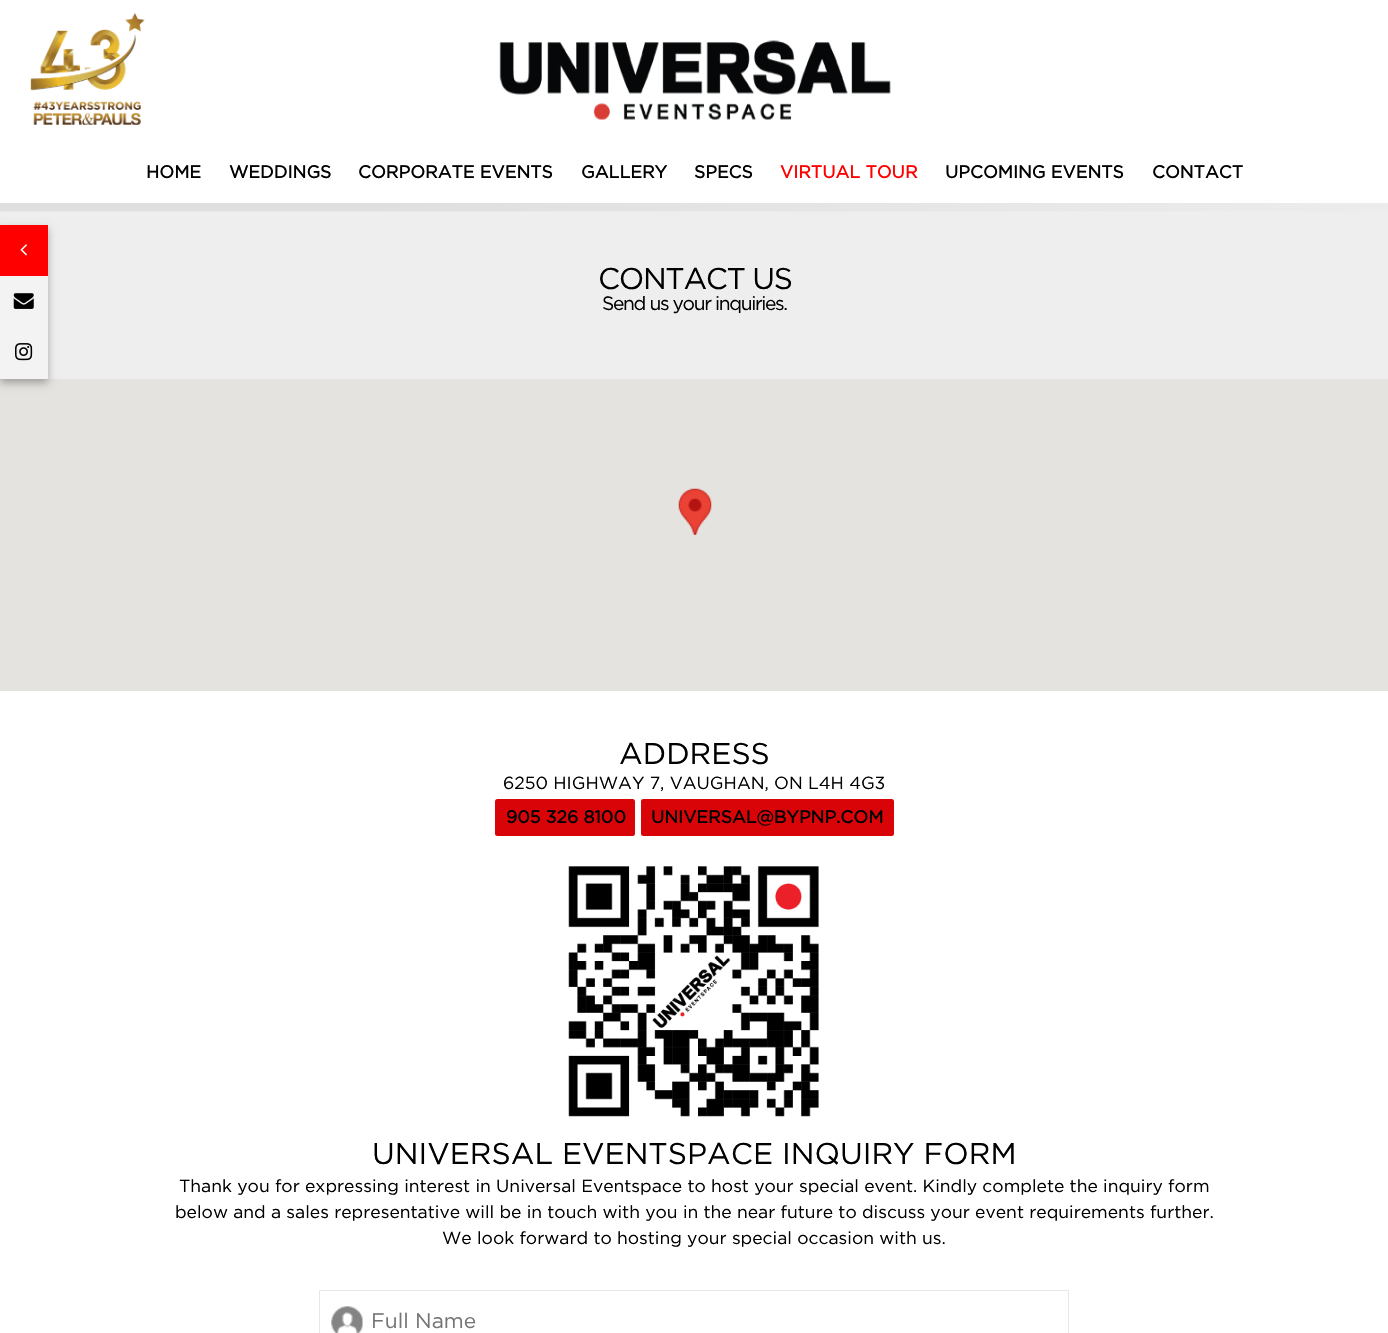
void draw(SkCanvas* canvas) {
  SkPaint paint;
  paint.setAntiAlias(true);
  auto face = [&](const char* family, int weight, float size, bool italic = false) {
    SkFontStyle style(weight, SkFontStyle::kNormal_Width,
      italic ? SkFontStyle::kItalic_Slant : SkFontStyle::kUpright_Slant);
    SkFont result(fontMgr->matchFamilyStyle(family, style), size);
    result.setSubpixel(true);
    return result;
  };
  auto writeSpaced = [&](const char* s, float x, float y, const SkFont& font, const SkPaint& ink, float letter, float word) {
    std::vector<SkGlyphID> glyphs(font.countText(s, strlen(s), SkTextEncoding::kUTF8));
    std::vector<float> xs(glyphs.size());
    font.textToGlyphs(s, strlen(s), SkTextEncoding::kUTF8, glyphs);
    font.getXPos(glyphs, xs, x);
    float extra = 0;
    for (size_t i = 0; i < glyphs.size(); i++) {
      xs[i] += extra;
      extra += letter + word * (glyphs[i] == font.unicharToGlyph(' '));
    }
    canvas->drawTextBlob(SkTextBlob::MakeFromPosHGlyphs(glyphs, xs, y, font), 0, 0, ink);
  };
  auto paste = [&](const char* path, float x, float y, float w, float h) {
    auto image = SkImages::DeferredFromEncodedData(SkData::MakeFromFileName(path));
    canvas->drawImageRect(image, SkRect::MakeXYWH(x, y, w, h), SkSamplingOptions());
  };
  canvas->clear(0xffffffff);
  paste("img/1.png", 30, 12, 115, 113);
  paste("img/2.png", 499, 40, 392, 80);
  paint.setColor(0xffeeeeef);
  canvas->drawRect(SkRect::MakeXYWH(0, 211, 1388, 168), paint);
  paste("img/3.png", 0, 203, 1388, 9);
  paint.setColor(0xffe5e3df);
  canvas->drawRect(SkRect::MakeXYWH(0, 379, 1388, 312), paint);
  paint.setColor(0x4d000000);
  paint.setMaskFilter(SkMaskFilter::MakeBlur(kNormal_SkBlurStyle, 4));
  canvas->drawRect(SkRect::MakeXYWH(0, 229, 48, 154), paint);
  paint.setMaskFilter(nullptr);
  paint.setColor(0xfff3f3f3);
  canvas->drawRect(SkRect::MakeXYWH(0, 276, 48, 103), paint);
  paint.setColor(0xffff0000);
  canvas->drawRect(SkRect::MakeXYWH(0, 225, 48, 51), paint);
  paste("img/4.png", 20, 244, 7, 12);
  paste("img/5.png", 13, 293, 21, 16);
  paste("img/6.png", 15, 343, 18, 18);
  paste("img/7.png", 678, 488, 34, 47);
  paint.setColor(0xffd80407);
  canvas->drawRoundRect(SkRect::MakeXYWH(495, 799, 140, 37), 2.5f, 2.5f, paint);
  canvas->drawRoundRect(SkRect::MakeXYWH(641, 799, 253, 37), 2.5f, 2.5f, paint);
  paste("img/8.png", 568, 866, 251, 251);
  paste("img/9.png", 331, 1306, 32, 27);
  paint.setStroke(true);
  paint.setStrokeWidth(1);
  paint.setColor(0xffe7e7e7);
  canvas->drawRect(SkRect::MakeXYWH(319.5f, 1290.5f, 749, 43), paint);
  auto f0 = face("Gotham", 700, 17.5f);
  paint.setStroke(false);
  paint.setColor(0xff000000);
  {
    const struct { const char* s; float x, y; } items[] = {
      {"HOME", 146, 178},
      {"WEDDINGS", 229, 178},
      {"CORPORATE EVENTS", 358, 178},
      {"GALLERY", 581, 178},
      {"SPECS", 694, 178},
    };
    for (auto [s, x, y] : items) {
      canvas->drawString(s, x, y, f0, paint);
    }
  }
  paint.setColor(0xffff0000);
  canvas->drawString("VIRTUAL TOUR", 780, 178, f0, paint);
  paint.setColor(0xff000000);
  canvas->drawString("UPCOMING EVENTS", 945, 178, f0, paint);
  canvas->drawString("CONTACT", 1152, 178, f0, paint);
  auto f1 = face("Gotham", 400, 30);
  writeSpaced("CONTACT US", 598, 289, f1, paint, -1.35f, 0);
  auto f2 = face("Gotham", 400, 19.25f);
  writeSpaced("Send us your inquiries.", 602, 310, f2, paint, -1.35f, 0);
  canvas->drawString("ADDRESS", 619, 764, f1, paint);
  auto f3 = face("Gotham", 400, 17.5f);
  canvas->drawString("6250 HIGHWAY 7, VAUGHAN, ON L4H 4G3", 503, 789, f3, paint);
  canvas->drawString("905 326 8100", 506, 823, f0, paint);
  canvas->drawString("UNIVERSAL@BYPNP.COM", 651, 823, f0, paint);
  canvas->drawString("UNIVERSAL EVENTSPACE INQUIRY FORM", 372, 1164, f1, paint);
  {
    const struct { const char* s; float x, y; } items[] = {
      {"Thank you for expressing interest in Universal Eventspace to host your special event. Kindly complete the inquiry form", 179, 1192},
      {"below and a sales representative will be in touch with you in the near future to discuss your event requirements further.", 175, 1218},
      {"We look forward to hosting your special occasion with us.", 442, 1244},
    };
    for (auto [s, x, y] : items) {
      canvas->drawString(s, x, y, f3, paint);
    }
  }
  auto f4 = face("Gotham", 400, 21);
  paint.setColor(0xff757575);
  canvas->drawString("Full Name", 371, 1328, f4, paint);
}
